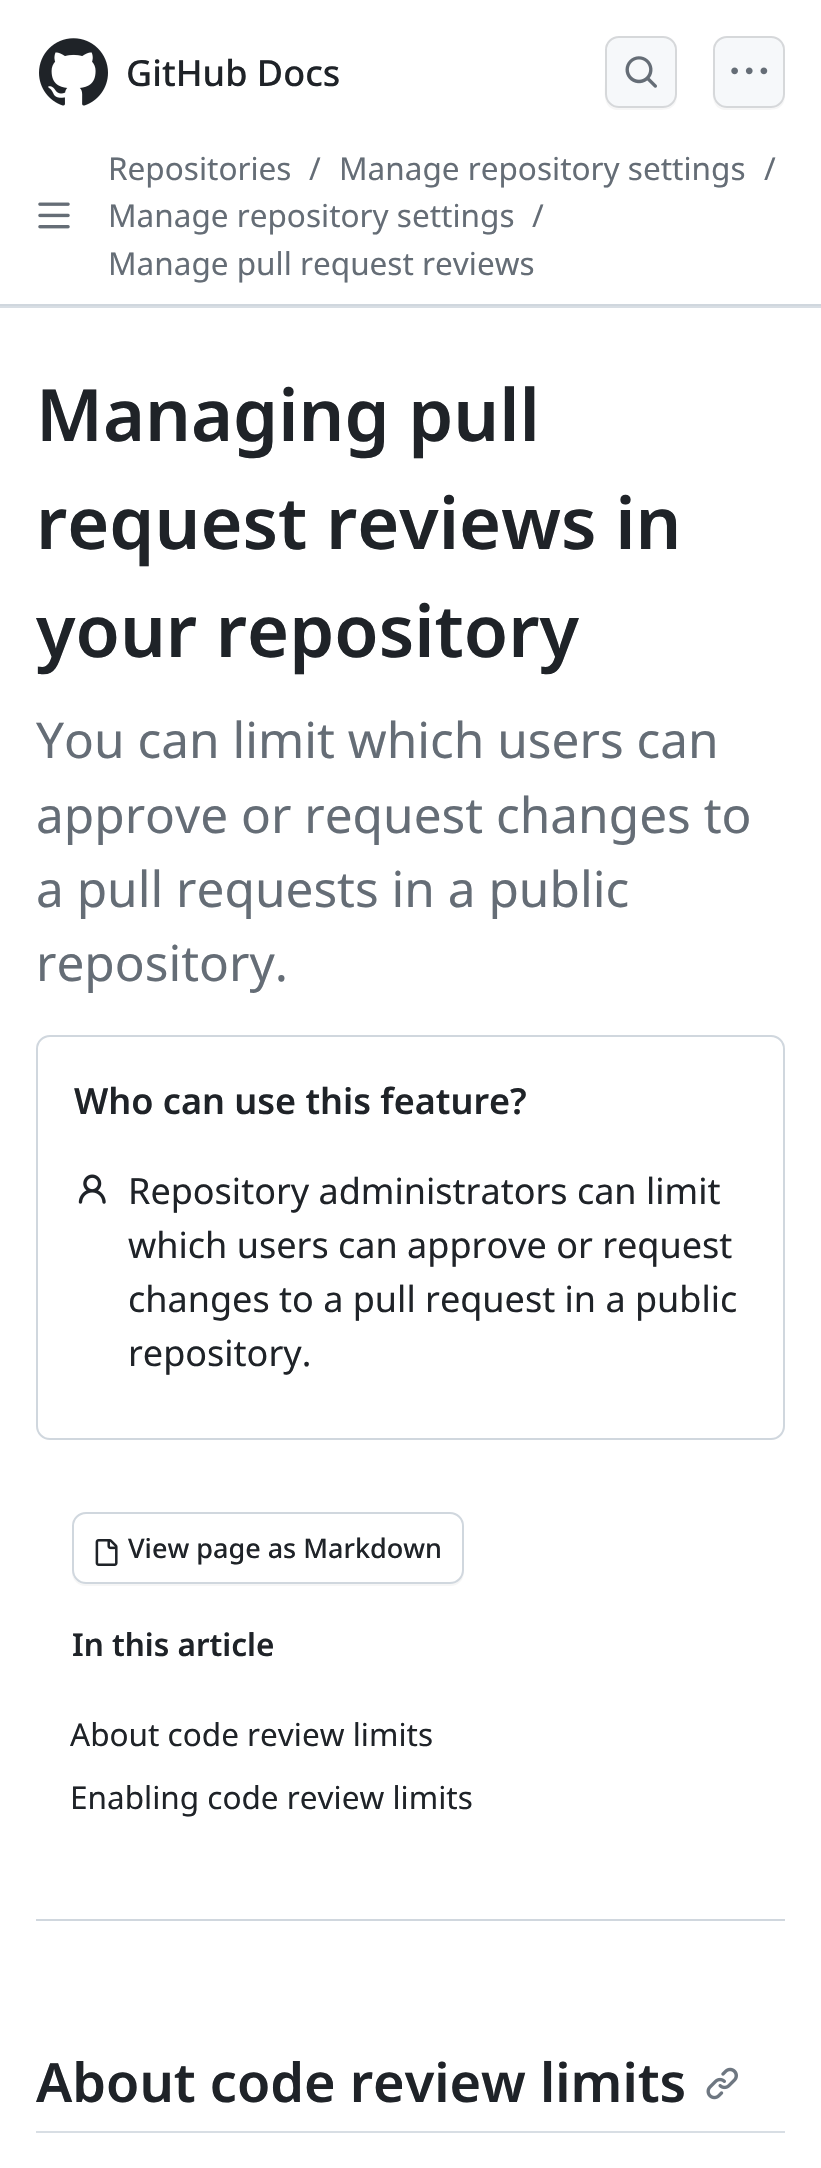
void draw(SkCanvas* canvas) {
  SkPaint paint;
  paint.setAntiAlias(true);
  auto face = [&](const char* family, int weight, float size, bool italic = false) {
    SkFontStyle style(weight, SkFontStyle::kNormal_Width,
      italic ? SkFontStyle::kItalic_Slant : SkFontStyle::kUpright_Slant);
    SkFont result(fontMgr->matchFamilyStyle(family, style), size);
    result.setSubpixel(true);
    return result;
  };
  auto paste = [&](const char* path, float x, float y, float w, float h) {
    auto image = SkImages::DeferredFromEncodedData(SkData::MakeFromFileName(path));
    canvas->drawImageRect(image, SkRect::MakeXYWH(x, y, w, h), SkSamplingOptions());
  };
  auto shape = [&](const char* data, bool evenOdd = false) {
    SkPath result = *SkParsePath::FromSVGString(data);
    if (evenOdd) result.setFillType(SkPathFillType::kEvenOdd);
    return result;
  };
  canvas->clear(0xffffffff);
  paint.setColor(0xffd8dee4);
  canvas->drawRect(SkRect::MakeXYWH(0, 306, 821, 2), paint);
  paint.setColor(0xffd0d7de);
  canvas->drawRect(SkRect::MakeXYWH(0, 304, 821, 2), paint);
  paste("img/1.png", 39, 38, 69, 68);
  paint.setColor(0xfff6f6f6);
  canvas->drawPath(shape("M605 49V81C605 92 602 107 616 110H656C665 110 676 110 677 97C676 103 670 108 664 108H619C611 108 605 102 605 94Z"), paint);
  paint.setColor(0xfff6f8fa);
  canvas->drawRoundRect(SkRect::MakeXYWH(605, 36, 72, 72), 14, 14, paint);
  paint.setStroke(true);
  paint.setStrokeWidth(2);
  paint.setColor(0x261f2328);
  canvas->drawRoundRect(SkRect::MakeXYWH(606, 37, 70, 70), 13, 13, paint);
  paste("img/2.png", 625, 56, 32, 32);
  paint.setStroke(false);
  paint.setColor(0xfff6f6f6);
  canvas->drawPath(shape("M713 49V81C713 92 710 107 724 110H764C773 110 784 110 785 97C784 103 778 108 772 108H727C719 108 713 102 713 94Z"), paint);
  paint.setColor(0xfff6f8fa);
  canvas->drawRoundRect(SkRect::MakeXYWH(713, 36, 72, 72), 14, 14, paint);
  paint.setStroke(true);
  paint.setColor(0x261f2328);
  canvas->drawRoundRect(SkRect::MakeXYWH(714, 37, 70, 70), 13, 13, paint);
  paste("img/3.png", 731, 67, 37, 8);
  paste("img/4.png", 38, 202, 32, 27);
  paint.setColor(0xffd0d7de);
  canvas->drawRoundRect(SkRect::MakeXYWH(37, 1036, 747, 403), 13, 13, paint);
  paste("img/5.png", 78, 1174, 28, 30);
  paint.setStroke(false);
  canvas->drawRect(SkRect::MakeXYWH(36, 1919, 749, 2), paint);
  paint.setColor(0xfff6f6f6);
  canvas->drawPath(shape("M72 1570V1572C72 1580 78 1586 86 1586H450C458 1586 464 1580 464 1572V1528L463 1524L464 1570C464 1578 457 1584 450 1584H86C78 1584 72 1578 72 1570Z"), paint);
  paint.setStroke(true);
  paint.setColor(0xffd0d7de);
  canvas->drawRoundRect(SkRect::MakeXYWH(73, 1513, 390, 70), 13, 13, paint);
  paste("img/6.png", 95, 1539, 23, 27);
  paint.setStroke(false);
  paint.setColor(0xffd8dee4);
  canvas->drawRect(SkRect::MakeXYWH(36, 2131, 749, 2), paint);
  paste("img/7.png", 706, 2067, 32, 33);
  auto f0 = face("Noto Sans", 500, 36);
  paint.setColor(0xff1f2328);
  canvas->drawString("GitHub Docs", 126, 86, f0, paint);
  auto f1 = face("Noto Sans", 400, 31.5f);
  paint.setColor(0xff656d76);
  {
    const struct { const char* s; float x, y; } items[] = {
      {"Repositories", 108, 180},
      {"/", 309, 180},
      {"Manage repository settings", 339, 180},
      {"/", 764, 180},
      {"Manage repository settings", 108, 227},
      {"/", 532, 227},
      {"Manage pull request reviews", 108, 275},
    };
    for (auto [s, x, y] : items) {
      canvas->drawString(s, x, y, f1, paint);
    }
  }
  auto f2 = face("Noto Sans", 600, 72);
  paint.setColor(0xff1f2328);
  {
    const struct { const char* s; float x, y; } items[] = {
      {"Managing pull", 36, 441},
      {"request reviews in", 36, 549},
      {"your repository", 36, 657},
    };
    for (auto [s, x, y] : items) {
      canvas->drawString(s, x, y, f2, paint);
    }
  }
  auto f3 = face("Noto Sans", 400, 49.5f);
  paint.setColor(0xff656d76);
  {
    const struct { const char* s; float x, y; } items[] = {
      {"You can limit which users can", 36, 758},
      {"approve or request changes to", 36, 833},
      {"a pull requests in a public", 36, 907},
      {"repository.", 36, 981},
    };
    for (auto [s, x, y] : items) {
      canvas->drawString(s, x, y, f3, paint);
    }
  }
  auto f4 = face("Noto Sans", 600, 36);
  paint.setColor(0xff1f2328);
  canvas->drawString("Who can use this feature?", 74, 1114, f4, paint);
  auto f5 = face("Noto Sans", 400, 36);
  {
    const struct { const char* s; float x, y; } items[] = {
      {"Repository administrators can limit", 128, 1204},
      {"which users can approve or request", 128, 1258},
      {"changes to a pull request in a public", 128, 1312},
      {"repository.", 128, 1366},
    };
    for (auto [s, x, y] : items) {
      canvas->drawString(s, x, y, f5, paint);
    }
  }
  auto f6 = face("Noto Sans", 500, 27);
  canvas->drawString("View page as Markdown", 128, 1558, f6, paint);
  auto f7 = face("Noto Sans", 600, 31.5f);
  canvas->drawString("In this article", 72, 1656, f7, paint);
  canvas->drawString("About code review limits", 70, 1746, f1, paint);
  canvas->drawString("Enabling code review limits", 70, 1809, f1, paint);
  auto f8 = face("Noto Sans", 600, 54);
  canvas->drawString("About code review limits", 36, 2102, f8, paint);
}
